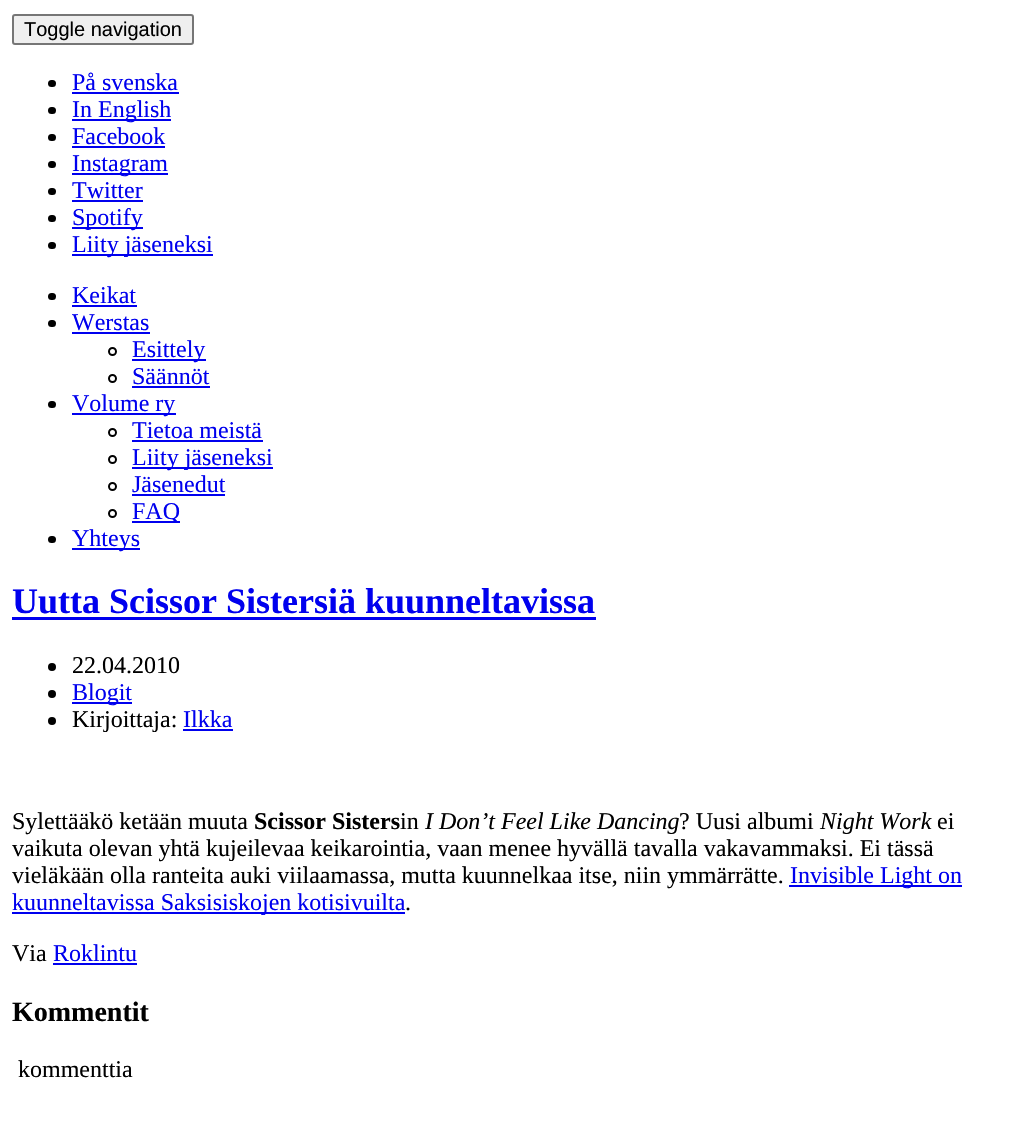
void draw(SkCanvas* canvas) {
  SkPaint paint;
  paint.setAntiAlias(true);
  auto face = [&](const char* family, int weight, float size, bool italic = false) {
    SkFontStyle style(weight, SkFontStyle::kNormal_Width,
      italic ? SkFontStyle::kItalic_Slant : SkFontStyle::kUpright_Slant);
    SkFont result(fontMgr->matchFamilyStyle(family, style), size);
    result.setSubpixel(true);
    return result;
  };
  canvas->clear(0xffffffff);
  paint.setColor(0xffefefef);
  canvas->drawRoundRect(SkRect::MakeXYWH(13, 15, 180, 29), 2, 2, paint);
  paint.setStroke(true);
  paint.setStrokeWidth(2);
  paint.setColor(0xff767676);
  canvas->drawRoundRect(SkRect::MakeXYWH(13, 15, 180, 29), 2, 2, paint);
  paint.setStroke(false);
  paint.setColor(0xff000000);
  canvas->drawRoundRect(SkRect::MakeXYWH(48, 80, 8, 7), 3.5f, 3.5f, paint);
  paint.setColor(0xff0000ee);
  canvas->drawRect(SkRect::MakeXYWH(72, 92, 107, 2), paint);
  paint.setColor(0xff000000);
  canvas->drawRoundRect(SkRect::MakeXYWH(48, 107, 8, 7), 3.5f, 3.5f, paint);
  paint.setColor(0xff0000ee);
  canvas->drawRect(SkRect::MakeXYWH(72, 119, 99, 2), paint);
  paint.setColor(0xff000000);
  canvas->drawRoundRect(SkRect::MakeXYWH(48, 134, 8, 7), 3.5f, 3.5f, paint);
  paint.setColor(0xff0000ee);
  canvas->drawRect(SkRect::MakeXYWH(72, 146, 93, 2), paint);
  paint.setColor(0xff000000);
  canvas->drawRoundRect(SkRect::MakeXYWH(48, 161, 8, 7), 3.5f, 3.5f, paint);
  paint.setColor(0xff0000ee);
  canvas->drawRect(SkRect::MakeXYWH(72, 173, 96, 2), paint);
  paint.setColor(0xff000000);
  canvas->drawRoundRect(SkRect::MakeXYWH(48, 188, 8, 7), 3.5f, 3.5f, paint);
  paint.setColor(0xff0000ee);
  canvas->drawRect(SkRect::MakeXYWH(72, 200, 71, 2), paint);
  paint.setColor(0xff000000);
  canvas->drawRoundRect(SkRect::MakeXYWH(48, 215, 8, 7), 3.5f, 3.5f, paint);
  paint.setColor(0xff0000ee);
  canvas->drawRect(SkRect::MakeXYWH(72, 227, 71, 2), paint);
  paint.setColor(0xff000000);
  canvas->drawRoundRect(SkRect::MakeXYWH(48, 242, 8, 7), 3.5f, 3.5f, paint);
  paint.setColor(0xff0000ee);
  canvas->drawRect(SkRect::MakeXYWH(72, 254, 141, 2), paint);
  paint.setColor(0xff000000);
  canvas->drawRoundRect(SkRect::MakeXYWH(48, 293, 8, 7), 3.5f, 3.5f, paint);
  paint.setColor(0xff0000ee);
  canvas->drawRect(SkRect::MakeXYWH(72, 305, 65, 2), paint);
  paint.setColor(0xff000000);
  canvas->drawRoundRect(SkRect::MakeXYWH(48, 320, 8, 7), 3.5f, 3.5f, paint);
  paint.setColor(0xff0000ee);
  canvas->drawRect(SkRect::MakeXYWH(72, 332, 78, 2), paint);
  paint.setStroke(true);
  paint.setColor(0xff000000);
  canvas->drawCircle(112.5f, 351.5f, 3.5f, paint);
  paint.setStroke(false);
  paint.setColor(0xff0000ee);
  canvas->drawRect(SkRect::MakeXYWH(132, 359, 74, 2), paint);
  paint.setStroke(true);
  paint.setColor(0xff000000);
  canvas->drawCircle(112.5f, 378.5f, 3.5f, paint);
  paint.setStroke(false);
  paint.setColor(0xff0000ee);
  canvas->drawRect(SkRect::MakeXYWH(132, 386, 78, 2), paint);
  paint.setColor(0xff000000);
  canvas->drawRoundRect(SkRect::MakeXYWH(48, 401, 8, 7), 3.5f, 3.5f, paint);
  paint.setColor(0xff0000ee);
  canvas->drawRect(SkRect::MakeXYWH(72, 413, 104, 2), paint);
  paint.setStroke(true);
  paint.setColor(0xff000000);
  canvas->drawCircle(112.5f, 432.5f, 3.5f, paint);
  paint.setStroke(false);
  paint.setColor(0xff0000ee);
  canvas->drawRect(SkRect::MakeXYWH(132, 440, 131, 2), paint);
  paint.setStroke(true);
  paint.setColor(0xff000000);
  canvas->drawCircle(112.5f, 459.5f, 3.5f, paint);
  paint.setStroke(false);
  paint.setColor(0xff0000ee);
  canvas->drawRect(SkRect::MakeXYWH(132, 467, 141, 2), paint);
  paint.setStroke(true);
  paint.setColor(0xff000000);
  canvas->drawCircle(112.5f, 486.5f, 3.5f, paint);
  paint.setStroke(false);
  paint.setColor(0xff0000ee);
  canvas->drawRect(SkRect::MakeXYWH(132, 494, 93, 2), paint);
  paint.setStroke(true);
  paint.setColor(0xff000000);
  canvas->drawCircle(112.5f, 513.5f, 3.5f, paint);
  paint.setStroke(false);
  paint.setColor(0xff0000ee);
  canvas->drawRect(SkRect::MakeXYWH(132, 521, 48, 2), paint);
  paint.setColor(0xff000000);
  canvas->drawRoundRect(SkRect::MakeXYWH(48, 536, 8, 7), 3.5f, 3.5f, paint);
  paint.setColor(0xff0000ee);
  canvas->drawRect(SkRect::MakeXYWH(72, 548, 68, 2), paint);
  canvas->drawRect(SkRect::MakeXYWH(12, 617, 584, 3), paint);
  paint.setColor(0xff000000);
  canvas->drawCircle(52, 667, 4, paint);
  canvas->drawCircle(52, 694, 4, paint);
  paint.setColor(0xff0000ee);
  canvas->drawRect(SkRect::MakeXYWH(72, 702, 60, 2), paint);
  paint.setColor(0xff000000);
  canvas->drawCircle(52, 721, 4, paint);
  {
    const struct { float x, y, w, h; SkColor color; } items[] = {
      {183, 729, 50, 2, 0xff0000ee},
      {789, 885, 173, 2, 0xff0000ee},
      {12, 912, 393, 2, 0xff0000ee},
      {53, 963, 84, 2, 0xff0000ee},
    };
    for (auto [x, y, w, h, color] : items) {
      paint.setColor(color);
      canvas->drawRect(SkRect::MakeXYWH(x, y, w, h), paint);
    }
  }
  auto f0 = face("Liberation Sans", 400, 20);
  paint.setColor(0xff000000);
  canvas->drawString("Toggle navigation", 24, 36, f0, paint);
  auto f1 = face("Liberation Serif", 400, 24);
  paint.setColor(0xff0000ee);
  {
    const struct { const char* s; float x, y; } items[] = {
      {"På svenska", 72, 90},
      {"In English", 72, 117},
      {"Facebook", 72, 144},
      {"Instagram", 72, 171},
      {"Twitter", 72, 198},
      {"Spotify", 72, 225},
      {"Liity jäseneksi", 72, 252},
      {"Keikat", 72, 303},
      {"Werstas", 72, 330},
      {"Esittely", 132, 357},
      {"Säännöt", 132, 384},
      {"Volume ry", 72, 411},
      {"Tietoa meistä", 132, 438},
      {"Liity jäseneksi", 132, 465},
      {"Jäsenedut", 132, 492},
      {"FAQ", 132, 519},
      {"Yhteys", 72, 546},
    };
    for (auto [s, x, y] : items) {
      canvas->drawString(s, x, y, f1, paint);
    }
  }
  auto f2 = face("Liberation Serif", 700, 36);
  canvas->drawString("Uutta Scissor Sistersiä kuunneltavissa", 12, 613, f2, paint);
  paint.setColor(0xff000000);
  canvas->drawString("22.04.2010", 72, 673, f1, paint);
  paint.setColor(0xff0000ee);
  canvas->drawString("Blogit", 72, 700, f1, paint);
  paint.setColor(0xff000000);
  canvas->drawString("Kirjoittaja:", 72, 727, f1, paint);
  paint.setColor(0xff0000ee);
  canvas->drawString("Ilkka", 183, 727, f1, paint);
  paint.setColor(0xff000000);
  canvas->drawString("Sylettääkö ketään muuta", 12, 829, f1, paint);
  auto f3 = face("Liberation Serif", 700, 24);
  canvas->drawString("Scissor Sisters", 254, 829, f3, paint);
  canvas->drawString("in", 400, 829, f1, paint);
  auto f4 = face("Liberation Serif", 400, 24, true);
  canvas->drawString("I Don’t Feel Like Dancing", 425, 829, f4, paint);
  canvas->drawString("? Uusi albumi", 679, 829, f1, paint);
  canvas->drawString("Night Work", 820, 829, f4, paint);
  {
    const struct { const char* s; float x, y; } items[] = {
      {"ei", 937, 829},
      {"vaikuta olevan yhtä kujeilevaa keikarointia, vaan menee hyvällä tavalla vakavammaksi. Ei tässä", 12, 856},
      {"vieläkään olla ranteita auki viilaamassa, mutta kuunnelkaa itse, niin ymmärrätte.", 12, 883},
    };
    for (auto [s, x, y] : items) {
      canvas->drawString(s, x, y, f1, paint);
    }
  }
  paint.setColor(0xff0000ee);
  canvas->drawString("Invisible Light on", 790, 883, f1, paint);
  canvas->drawString("kuunneltavissa Saksisiskojen kotisivuilta", 12, 910, f1, paint);
  paint.setColor(0xff000000);
  canvas->drawString(".", 405, 910, f1, paint);
  canvas->drawString("Via", 12, 961, f1, paint);
  paint.setColor(0xff0000ee);
  canvas->drawString("Roklintu", 53, 961, f1, paint);
  auto f5 = face("Liberation Serif", 700, 28);
  paint.setColor(0xff000000);
  canvas->drawString("Kommentit", 12, 1021, f5, paint);
  canvas->drawString("kommenttia", 18, 1077, f1, paint);
}
